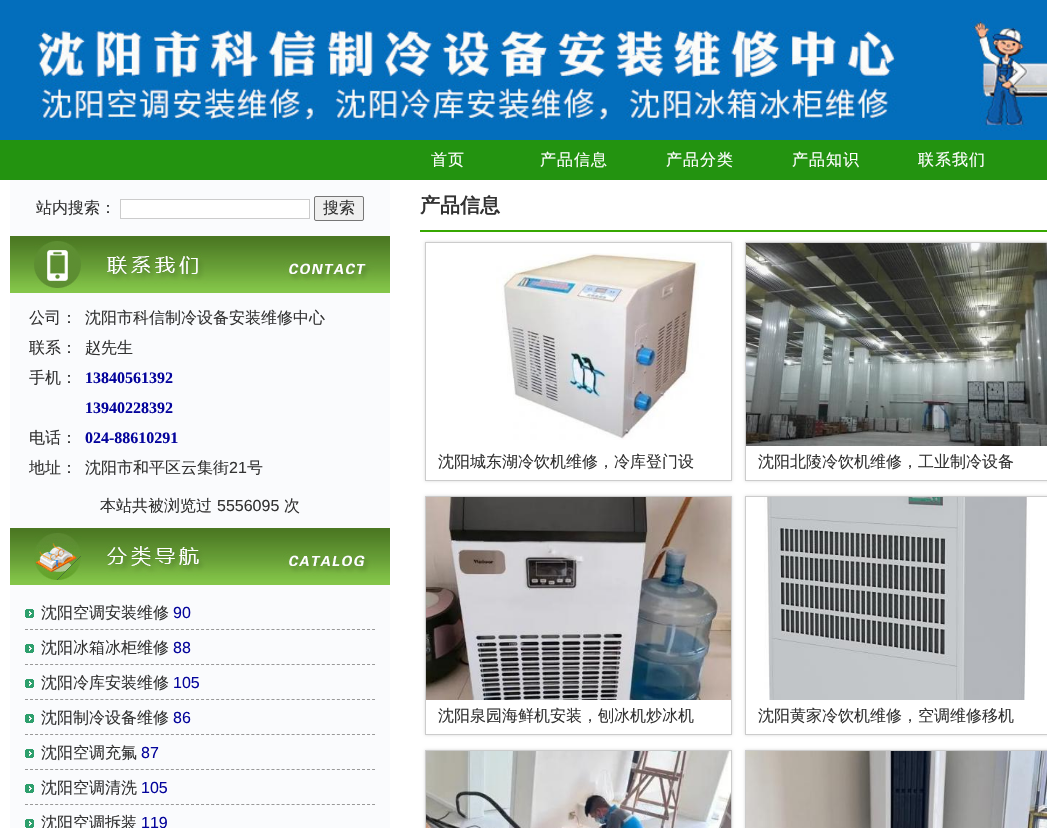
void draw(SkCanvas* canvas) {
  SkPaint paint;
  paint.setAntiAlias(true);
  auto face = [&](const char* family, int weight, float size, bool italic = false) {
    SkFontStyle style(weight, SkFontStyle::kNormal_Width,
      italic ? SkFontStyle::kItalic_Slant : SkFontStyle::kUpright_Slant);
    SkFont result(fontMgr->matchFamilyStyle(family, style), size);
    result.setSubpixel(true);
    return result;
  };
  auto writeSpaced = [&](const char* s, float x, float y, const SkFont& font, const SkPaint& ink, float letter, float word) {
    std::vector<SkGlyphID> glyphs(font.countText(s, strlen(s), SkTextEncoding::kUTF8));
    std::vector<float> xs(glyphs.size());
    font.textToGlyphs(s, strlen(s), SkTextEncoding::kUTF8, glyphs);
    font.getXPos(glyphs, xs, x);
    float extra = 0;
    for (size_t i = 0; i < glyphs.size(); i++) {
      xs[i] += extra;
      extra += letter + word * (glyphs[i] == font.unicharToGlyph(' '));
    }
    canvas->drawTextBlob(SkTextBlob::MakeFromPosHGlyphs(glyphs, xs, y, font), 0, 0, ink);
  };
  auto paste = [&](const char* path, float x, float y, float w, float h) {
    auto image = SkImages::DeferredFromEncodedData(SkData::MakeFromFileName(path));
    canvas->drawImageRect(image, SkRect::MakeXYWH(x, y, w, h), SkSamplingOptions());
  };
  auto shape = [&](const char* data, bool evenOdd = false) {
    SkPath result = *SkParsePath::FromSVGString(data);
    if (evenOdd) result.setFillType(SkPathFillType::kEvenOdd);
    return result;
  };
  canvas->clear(0xffffffff);
  paste("img/1.png", 0, 0, 1047, 140);
  paint.setColor(0xff239310);
  canvas->drawRect(SkRect::MakeXYWH(0, 140, 1047, 40), paint);
  paint.setColor(0xfffafbfd);
  canvas->drawRect(SkRect::MakeXYWH(10, 180, 380, 648), paint);
  paint.setColor(0xffffffff);
  canvas->drawRect(SkRect::MakeXYWH(120.5f, 199.5f, 189, 19), paint);
  paint.setStroke(true);
  paint.setStrokeWidth(1);
  paint.setColor(0xffcccccc);
  canvas->drawRect(SkRect::MakeXYWH(120.5f, 199.5f, 189, 19), paint);
  paint.setStroke(false);
  paint.setColor(0xffefefef);
  canvas->drawRoundRect(SkRect::MakeXYWH(314.5f, 196.5f, 49, 24), 1.5f, 1.5f, paint);
  paint.setStroke(true);
  paint.setColor(0xff767676);
  canvas->drawRoundRect(SkRect::MakeXYWH(314.5f, 196.5f, 49, 24), 1.5f, 1.5f, paint);
  paste("img/2.png", 10, 236, 380, 57);
  paste("img/3.png", 10, 528, 380, 57);
  paint.setColor(0xff999999);
  paint.setPathEffect(SkDashPathEffect::Make({{3, 2.03f}}, 0));
  canvas->drawPath(shape("M25 629.5H375"), paint);
  paint.setPathEffect(nullptr);
  paste("img/4.png", 25, 609, 9, 9);
  paint.setPathEffect(SkDashPathEffect::Make({{3, 2.03f}}, 0));
  canvas->drawPath(shape("M25 664.5H375"), paint);
  paint.setPathEffect(nullptr);
  paste("img/4.png", 25, 644, 9, 9);
  paint.setPathEffect(SkDashPathEffect::Make({{3, 2.03f}}, 0));
  canvas->drawPath(shape("M25 699.5H375"), paint);
  paint.setPathEffect(nullptr);
  paste("img/4.png", 25, 679, 9, 9);
  paint.setPathEffect(SkDashPathEffect::Make({{3, 2.03f}}, 0));
  canvas->drawPath(shape("M25 734.5H375"), paint);
  paint.setPathEffect(nullptr);
  paste("img/4.png", 25, 714, 9, 9);
  paint.setPathEffect(SkDashPathEffect::Make({{3, 2.03f}}, 0));
  canvas->drawPath(shape("M25 769.5H375"), paint);
  paint.setPathEffect(nullptr);
  paste("img/4.png", 25, 749, 9, 9);
  paint.setPathEffect(SkDashPathEffect::Make({{3, 2.03f}}, 0));
  canvas->drawPath(shape("M25 804.5H375"), paint);
  paint.setPathEffect(nullptr);
  paste("img/4.png", 25, 784, 9, 9);
  paste("img/4.png", 25, 819, 9, 9);
  paint.setStroke(false);
  paint.setColor(0xff37a801);
  canvas->drawRect(SkRect::MakeXYWH(420, 230, 627, 2), paint);
  canvas->save();
  canvas->clipPath(shape("M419 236H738V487H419ZM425 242H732V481H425Z", true), true);
  paint.setColor(0x26000000);
  paint.setMaskFilter(SkMaskFilter::MakeBlur(kNormal_SkBlurStyle, 1.5f));
  canvas->drawRect(SkRect::MakeXYWH(425, 242, 307, 239), paint);
  paint.setMaskFilter(nullptr);
  canvas->restore();
  paint.setStroke(true);
  paint.setColor(0xffcccccc);
  canvas->drawRect(SkRect::MakeXYWH(425.5f, 242.5f, 306, 238), paint);
  paste("img/5.png", 496, 253, 209, 187);
  canvas->save();
  canvas->clipPath(shape("M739 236H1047V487H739ZM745 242H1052V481H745Z", true), true);
  paint.setStroke(false);
  paint.setColor(0x26000000);
  paint.setMaskFilter(SkMaskFilter::MakeBlur(kNormal_SkBlurStyle, 1.5f));
  canvas->drawRect(SkRect::MakeXYWH(745, 242, 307, 239), paint);
  paint.setMaskFilter(nullptr);
  canvas->restore();
  paint.setStroke(true);
  paint.setColor(0xffcccccc);
  canvas->drawRect(SkRect::MakeXYWH(745.5f, 242.5f, 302, 238), paint);
  paste("img/6.png", 746, 243, 301, 203);
  canvas->save();
  canvas->clipPath(shape("M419 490H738V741H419ZM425 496H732V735H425Z", true), true);
  paint.setStroke(false);
  paint.setColor(0x26000000);
  paint.setMaskFilter(SkMaskFilter::MakeBlur(kNormal_SkBlurStyle, 1.5f));
  canvas->drawRect(SkRect::MakeXYWH(425, 496, 307, 239), paint);
  paint.setMaskFilter(nullptr);
  canvas->restore();
  paint.setStroke(true);
  paint.setColor(0xffcccccc);
  canvas->drawRect(SkRect::MakeXYWH(425.5f, 496.5f, 306, 238), paint);
  paste("img/7.png", 426, 497, 305, 203);
  canvas->save();
  canvas->clipPath(shape("M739 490H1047V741H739ZM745 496H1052V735H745Z", true), true);
  paint.setStroke(false);
  paint.setColor(0x26000000);
  paint.setMaskFilter(SkMaskFilter::MakeBlur(kNormal_SkBlurStyle, 1.5f));
  canvas->drawRect(SkRect::MakeXYWH(745, 496, 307, 239), paint);
  paint.setMaskFilter(nullptr);
  canvas->restore();
  paint.setStroke(true);
  paint.setColor(0xffcccccc);
  canvas->drawRect(SkRect::MakeXYWH(745.5f, 496.5f, 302, 238), paint);
  paste("img/8.png", 764, 497, 266, 203);
  paint.setStroke(false);
  paint.setColor(0x26000000);
  paint.setMaskFilter(SkMaskFilter::MakeBlur(kNormal_SkBlurStyle, 1.5f));
  canvas->drawRect(SkRect::MakeXYWH(425, 750, 307, 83), paint);
  paint.setMaskFilter(nullptr);
  paint.setStroke(true);
  paint.setColor(0xffcccccc);
  canvas->drawRect(SkRect::MakeXYWH(425.5f, 750.5f, 306, 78), paint);
  paste("img/9.png", 426, 751, 305, 77);
  paint.setStroke(false);
  paint.setColor(0x26000000);
  paint.setMaskFilter(SkMaskFilter::MakeBlur(kNormal_SkBlurStyle, 1.5f));
  canvas->drawRect(SkRect::MakeXYWH(745, 750, 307, 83), paint);
  paint.setMaskFilter(nullptr);
  paint.setStroke(true);
  paint.setColor(0xffcccccc);
  canvas->drawRect(SkRect::MakeXYWH(745.5f, 750.5f, 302, 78), paint);
  paste("img/10.png", 746, 751, 301, 77);
  auto f0 = face("WenQuanYi Zen Hei", 500, 16);
  paint.setStroke(false);
  paint.setColor(0xffffffff);
  {
    const struct { const char* s; float x, y; } items[] = {
      {"首页", 431, 165},
      {"产品信息", 540, 165},
      {"产品分类", 666, 165},
      {"产品知识", 792, 165},
      {"联系我们", 918, 165},
    };
    for (auto [s, x, y] : items) {
      writeSpaced(s, x, y, f0, paint, 1, 0);
    }
  }
  paint.setColor(0xff333333);
  {
    const struct { const char* s; float x, y; } items[] = {
      {"站内搜索：", 36, 213},
      {"搜索", 323, 213},
      {"公司：", 29, 323},
      {"沈阳市科信制冷设备安装维修中心", 85, 323},
      {"联系：", 29, 353},
      {"赵先生", 85, 353},
      {"手机：", 29, 383},
    };
    for (auto [s, x, y] : items) {
      canvas->drawString(s, x, y, f0, paint);
    }
  }
  auto f1 = face("Liberation Serif", 700, 16);
  paint.setColor(0xff04049c);
  canvas->drawString("13840561392", 85, 383, f1, paint);
  canvas->drawString("13940228392", 85, 413, f1, paint);
  paint.setColor(0xff333333);
  canvas->drawString("电话：", 29, 443, f0, paint);
  paint.setColor(0xff04049c);
  canvas->drawString("024-88610291", 85, 443, f1, paint);
  paint.setColor(0xff333333);
  canvas->drawString("地址：", 29, 473, f0, paint);
  canvas->drawString("沈阳市和平区云集街", 85, 473, f0, paint);
  auto f2 = face("Liberation Sans", 400, 16);
  canvas->drawString("21", 229, 473, f2, paint);
  canvas->drawString("号", 247, 473, f0, paint);
  canvas->drawString("本站共被浏览过", 100, 511, f0, paint);
  canvas->drawString("5556095", 217, 511, f2, paint);
  canvas->drawString("次", 284, 511, f0, paint);
  canvas->drawString("沈阳空调安装维修", 41, 618, f0, paint);
  paint.setColor(0xff04049c);
  canvas->drawString("90", 173, 618, f2, paint);
  paint.setColor(0xff333333);
  canvas->drawString("沈阳冰箱冰柜维修", 41, 653, f0, paint);
  paint.setColor(0xff04049c);
  canvas->drawString("88", 173, 653, f2, paint);
  paint.setColor(0xff333333);
  canvas->drawString("沈阳冷库安装维修", 41, 688, f0, paint);
  paint.setColor(0xff04049c);
  canvas->drawString("105", 173, 688, f2, paint);
  paint.setColor(0xff333333);
  canvas->drawString("沈阳制冷设备维修", 41, 723, f0, paint);
  paint.setColor(0xff04049c);
  canvas->drawString("86", 173, 723, f2, paint);
  paint.setColor(0xff333333);
  canvas->drawString("沈阳空调充氟", 41, 758, f0, paint);
  paint.setColor(0xff04049c);
  canvas->drawString("87", 141, 758, f2, paint);
  paint.setColor(0xff333333);
  canvas->drawString("沈阳空调清洗", 41, 793, f0, paint);
  paint.setColor(0xff04049c);
  canvas->drawString("105", 141, 793, f2, paint);
  paint.setColor(0xff333333);
  canvas->drawString("沈阳空调拆装", 41, 828, f0, paint);
  paint.setColor(0xff04049c);
  canvas->drawString("119", 141, 828, f2, paint);
  auto f3 = face("WenQuanYi Zen Hei", 700, 20);
  paint.setColor(0xff333333);
  canvas->drawString("产品信息", 420, 212, f3, paint);
  {
    const struct { const char* s; float x, y; } items[] = {
      {"沈阳城东湖冷饮机维修，冷库登门设", 438, 467},
      {"沈阳北陵冷饮机维修，工业制冷设备", 758, 467},
      {"沈阳泉园海鲜机安装，刨冰机炒冰机", 438, 721},
      {"沈阳黄家冷饮机维修，空调维修移机", 758, 721},
    };
    for (auto [s, x, y] : items) {
      canvas->drawString(s, x, y, f0, paint);
    }
  }
}
